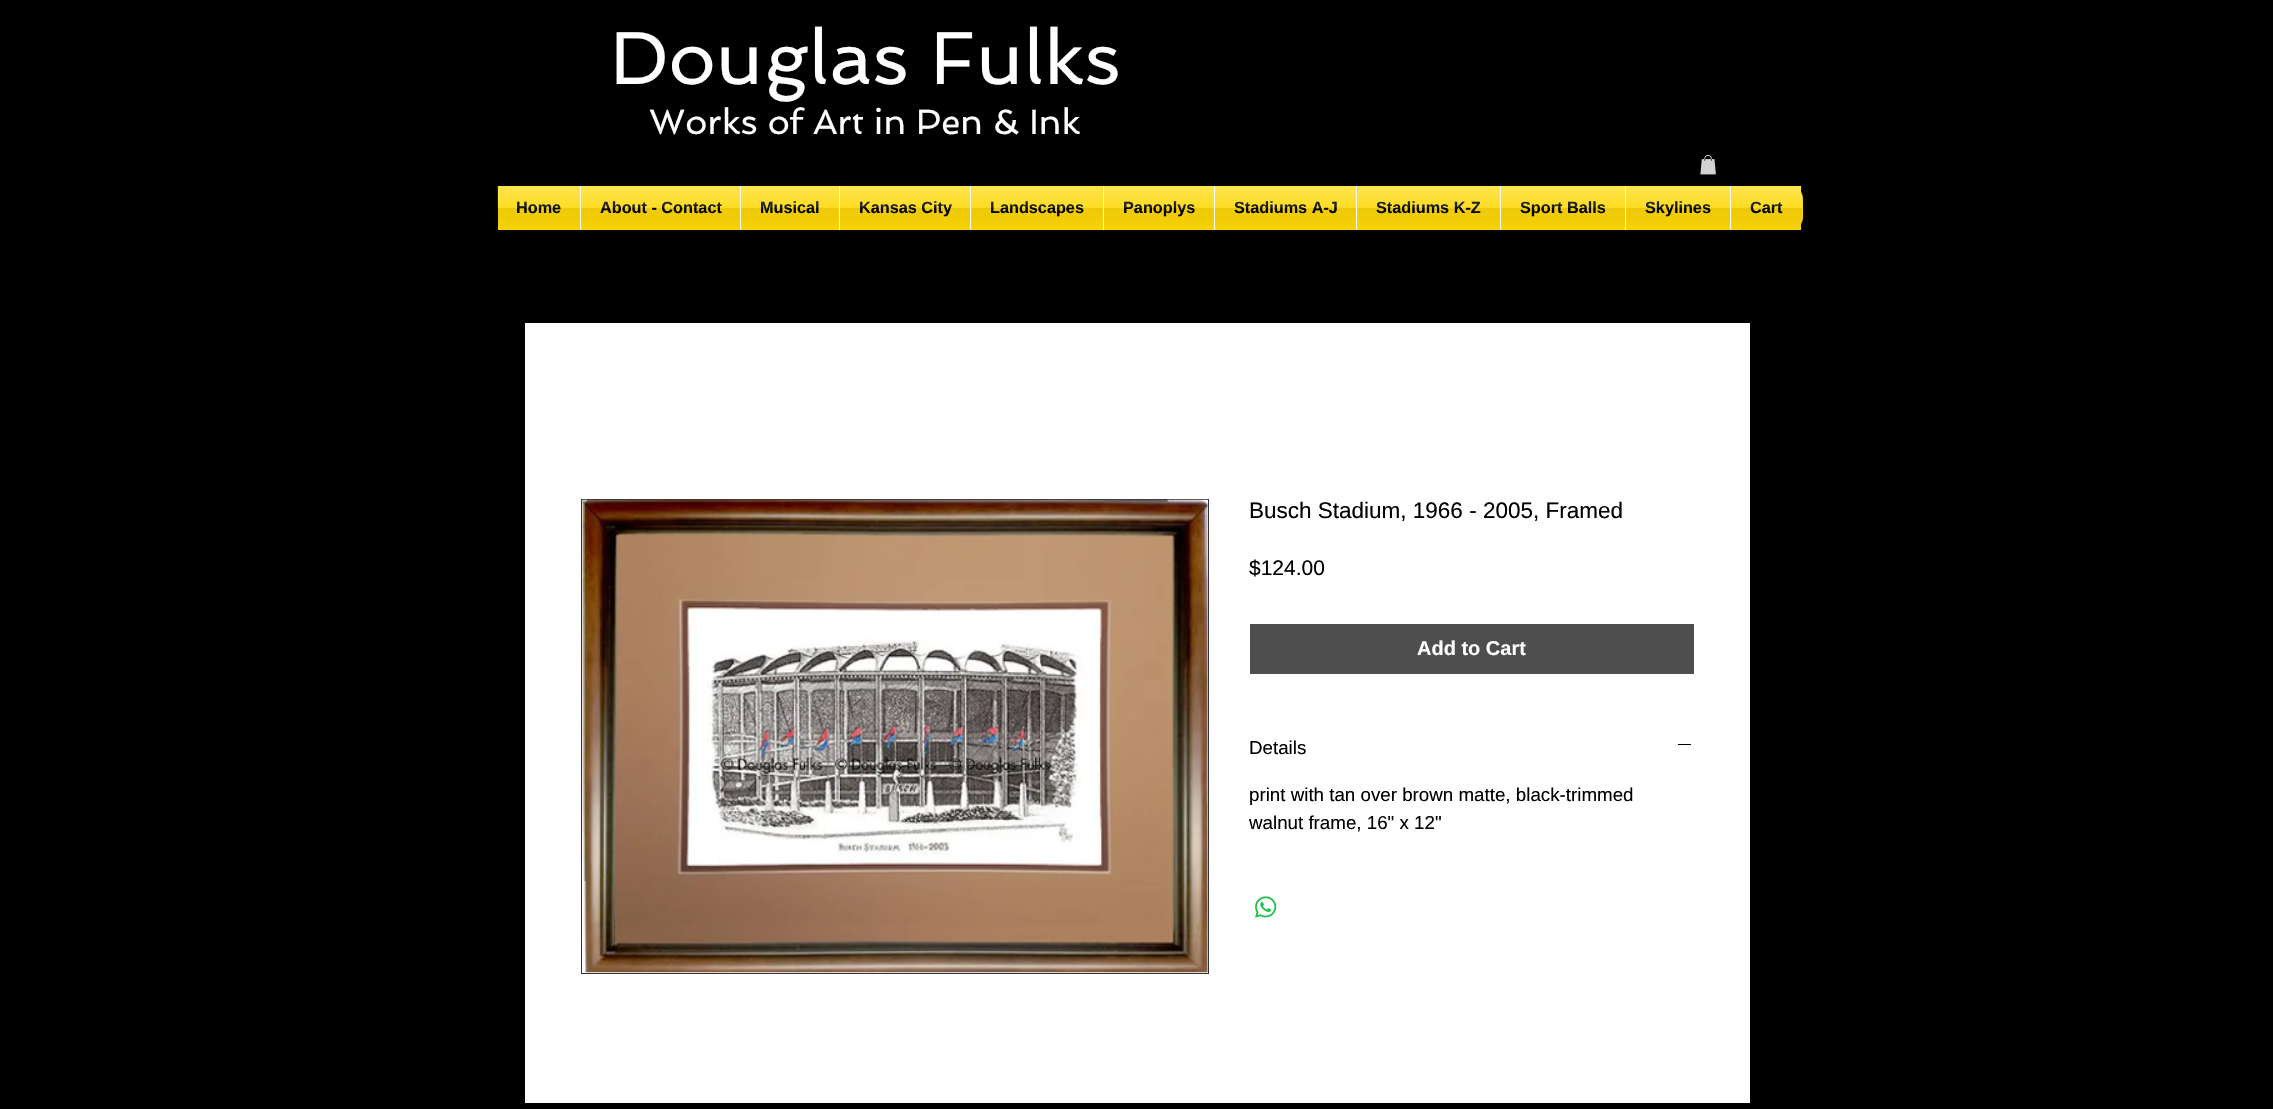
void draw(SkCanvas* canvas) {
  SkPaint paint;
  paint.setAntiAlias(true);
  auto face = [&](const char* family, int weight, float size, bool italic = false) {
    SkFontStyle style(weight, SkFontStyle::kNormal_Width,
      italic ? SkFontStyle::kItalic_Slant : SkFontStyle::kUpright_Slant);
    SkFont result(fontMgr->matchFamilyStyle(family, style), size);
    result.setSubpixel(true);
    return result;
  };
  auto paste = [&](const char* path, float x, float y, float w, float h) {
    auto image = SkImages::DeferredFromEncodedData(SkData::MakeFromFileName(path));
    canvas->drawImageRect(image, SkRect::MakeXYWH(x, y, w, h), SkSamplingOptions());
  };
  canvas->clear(0xff000000);
  paste("img/1.png", 1700, 155, 16, 20);
  paint.setColor(0xffffd908);
  canvas->drawRoundRect(SkRect::MakeXYWH(498, 186, 1305, 44), 13, 13, paint);
  paste("img/2.png", 497, 193, 1306, 29);
  {
    const struct { float x, y, w, h; SkColor color; } items[] = {
      {498, 186, 82, 44, 0xffffd908},
      {581, 193, 159, 29, 0xffffd908},
      {580, 186, 1, 44, 0xffffffff},
      {741, 193, 98, 29, 0xffffd908},
      {740, 186, 1, 44, 0xffffffff},
      {840, 193, 130, 29, 0xffffd908},
      {839, 186, 1, 44, 0xffffffff},
      {971, 193, 132, 29, 0xffffd908},
      {970, 186, 1, 44, 0xffffffff},
      {1104, 193, 110, 29, 0xffffd908},
      {1103, 186, 1, 44, 0xffffffff},
      {1215, 193, 141, 29, 0xffffd908},
      {1214, 186, 1, 44, 0xffffffff},
      {1357, 193, 143, 29, 0xffffd908},
      {1356, 186, 1, 44, 0xffffffff},
      {1501, 193, 124, 29, 0xffffd908},
      {1500, 186, 1, 44, 0xffffffff},
      {1626, 193, 104, 29, 0xffffd908},
      {1625, 186, 1, 44, 0xffffffff},
      {1731, 186, 70, 44, 0xffffd908},
      {1730, 186, 1, 44, 0xffffffff},
      {525, 323, 1225, 780, 0xffffffff},
    };
    for (auto [x, y, w, h, color] : items) {
      paint.setColor(color);
      canvas->drawRect(SkRect::MakeXYWH(x, y, w, h), paint);
    }
  }
  paint.setStroke(true);
  paint.setStrokeWidth(1);
  paint.setColor(0xff333333);
  canvas->drawRect(SkRect::MakeXYWH(581.5f, 499.5f, 627, 474), paint);
  paste("img/14.png", 582, 499, 626, 474);
  paint.setStroke(false);
  paint.setColor(0xff4e4e4e);
  canvas->drawRect(SkRect::MakeXYWH(1250, 624, 444, 50), paint);
  paint.setColor(0xff000000);
  canvas->drawRect(SkRect::MakeXYWH(1678, 744, 13, 1), paint);
  paste("img/15.png", 1255, 896, 22, 22);
  auto f0 = face("Spinnaker", 400, 75);
  paint.setColor(0xffffffff);
  canvas->drawString("Douglas Fulks", 610, 84, f0, paint);
  auto f1 = face("Spinnaker", 400, 35);
  canvas->drawString("Works of Art in Pen & Ink", 649, 134, f1, paint);
  auto f2 = face("Liberation Sans", 700, 16.25f);
  paint.setColor(0xff000000);
  canvas->drawString("Home", 516, 213, f2, paint);
  paste("img/3.png", 497, 186, 83, 44);
  canvas->drawString("About - Contact", 600, 213, f2, paint);
  paste("img/4.png", 581, 186, 159, 44);
  canvas->drawString("Musical", 760, 213, f2, paint);
  paste("img/5.png", 741, 186, 98, 44);
  canvas->drawString("Kansas City", 859, 213, f2, paint);
  paste("img/6.png", 840, 186, 130, 44);
  canvas->drawString("Landscapes", 990, 213, f2, paint);
  paste("img/7.png", 971, 186, 132, 44);
  canvas->drawString("Panoplys", 1123, 213, f2, paint);
  paste("img/8.png", 1104, 186, 110, 44);
  canvas->drawString("Stadiums A-J", 1234, 213, f2, paint);
  paste("img/9.png", 1215, 186, 141, 44);
  canvas->drawString("Stadiums K-Z", 1376, 213, f2, paint);
  paste("img/10.png", 1357, 186, 143, 44);
  canvas->drawString("Sport Balls", 1520, 213, f2, paint);
  paste("img/11.png", 1501, 186, 124, 44);
  canvas->drawString("Skylines", 1645, 213, f2, paint);
  paste("img/12.png", 1626, 186, 104, 44);
  canvas->drawString("Cart", 1750, 213, f2, paint);
  paste("img/13.png", 1731, 186, 71, 44);
  auto f3 = face("Liberation Sans", 400, 22.5f);
  canvas->drawString("Busch Stadium, 1966 - 2005, Framed", 1249, 518, f3, paint);
  auto f4 = face("Liberation Sans", 400, 21);
  canvas->drawString("$124.00", 1249, 575, f4, paint);
  auto f5 = face("Liberation Sans", 700, 20);
  paint.setColor(0xffffffff);
  canvas->drawString("Add to Cart", 1417, 655, f5, paint);
  auto f6 = face("Liberation Sans", 400, 18.75f);
  paint.setColor(0xff000000);
  {
    const struct { const char* s; float x, y; } items[] = {
      {"Details", 1249, 754},
      {"print with tan over brown matte, black-trimmed", 1249, 801},
      {"walnut frame, 16\" x 12\"", 1249, 829},
    };
    for (auto [s, x, y] : items) {
      canvas->drawString(s, x, y, f6, paint);
    }
  }
}
